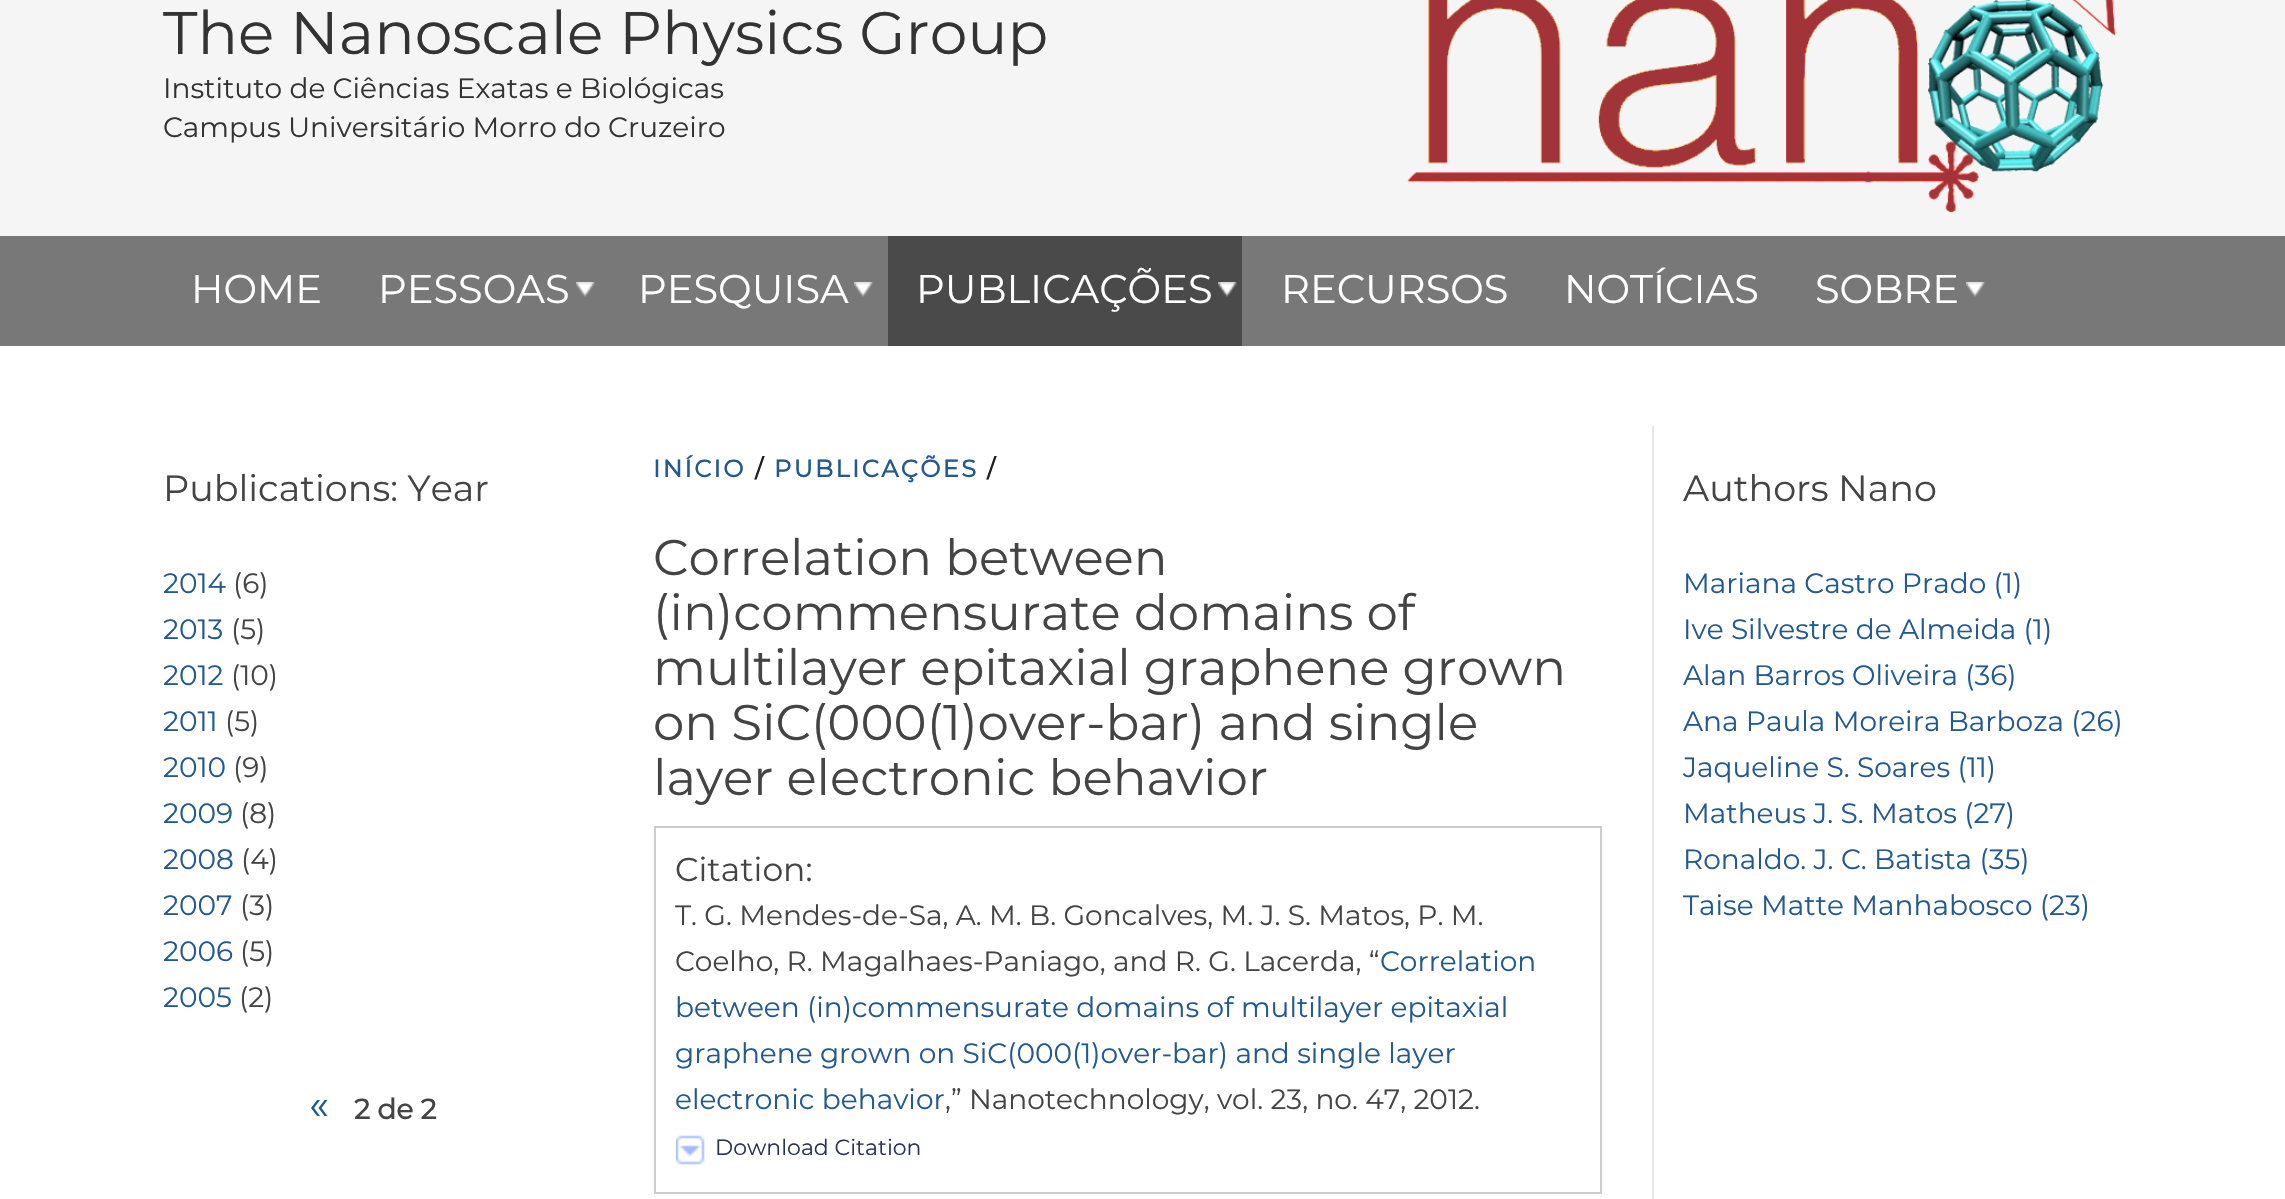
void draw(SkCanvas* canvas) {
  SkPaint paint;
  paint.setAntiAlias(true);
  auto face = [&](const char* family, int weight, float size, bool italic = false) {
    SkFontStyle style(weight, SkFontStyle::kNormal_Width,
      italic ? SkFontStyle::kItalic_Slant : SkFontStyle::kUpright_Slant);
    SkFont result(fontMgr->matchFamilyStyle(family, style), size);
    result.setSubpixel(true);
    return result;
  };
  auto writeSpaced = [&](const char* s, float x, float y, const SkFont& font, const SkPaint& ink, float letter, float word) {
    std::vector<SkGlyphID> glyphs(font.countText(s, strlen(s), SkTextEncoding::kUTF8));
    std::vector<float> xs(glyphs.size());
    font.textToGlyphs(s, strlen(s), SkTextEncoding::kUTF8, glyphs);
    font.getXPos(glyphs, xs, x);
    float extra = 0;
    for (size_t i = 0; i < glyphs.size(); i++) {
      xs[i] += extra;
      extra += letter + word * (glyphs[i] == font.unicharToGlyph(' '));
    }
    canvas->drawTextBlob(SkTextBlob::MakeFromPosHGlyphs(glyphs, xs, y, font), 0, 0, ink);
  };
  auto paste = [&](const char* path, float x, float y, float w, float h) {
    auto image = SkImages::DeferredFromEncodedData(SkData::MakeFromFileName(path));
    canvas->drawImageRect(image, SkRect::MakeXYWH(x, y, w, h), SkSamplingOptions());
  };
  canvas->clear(0xffffffff);
  paint.setColor(0xfff5f5f5);
  canvas->drawRect(SkRect::MakeXYWH(0, 0, 2285, 236), paint);
  paste("img/1.png", 1407, 0, 709, 213);
  paint.setColor(0xff787878);
  canvas->drawRect(SkRect::MakeXYWH(0, 236, 2285, 110), paint);
  paste("img/2.png", 576, 282, 19, 15);
  paste("img/2.png", 854, 282, 19, 15);
  paint.setColor(0xff4a4a4a);
  canvas->drawRect(SkRect::MakeXYWH(888, 236, 354, 110), paint);
  paste("img/3.png", 1218, 282, 19, 15);
  paste("img/2.png", 1966, 282, 19, 15);
  paint.setColor(0xffe7e7e7);
  canvas->drawRect(SkRect::MakeXYWH(1652, 426, 2, 773), paint);
  paint.setStroke(true);
  paint.setStrokeWidth(2);
  paint.setColor(0xffcccccc);
  canvas->drawRect(SkRect::MakeXYWH(655, 827, 946, 366), paint);
  paste("img/4.png", 676, 1135, 29, 30);
  auto f0 = face("Montserrat", 100, 60);
  paint.setStroke(false);
  paint.setColor(0xff333333);
  canvas->drawString("The Nanoscale Physics Group", 163, 54, f0, paint);
  auto f1 = face("Montserrat", 100, 28);
  canvas->drawString("Instituto de Ciências Exatas e Biológicas", 163, 98, f1, paint);
  canvas->drawString("Campus Universitário Morro do Cruzeiro", 163, 137, f1, paint);
  auto f2 = face("Montserrat", 100, 40);
  paint.setColor(0xffffffff);
  {
    const struct { const char* s; float x, y; } items[] = {
      {"HOME", 191, 303},
      {"PESSOAS", 378, 303},
      {"PESQUISA", 638, 303},
      {"PUBLICAÇÕES", 916, 303},
      {"RECURSOS", 1281, 303},
      {"NOTÍCIAS", 1564, 303},
      {"SOBRE", 1815, 303},
    };
    for (auto [s, x, y] : items) {
      canvas->drawString(s, x, y, f2, paint);
    }
  }
  auto f3 = face("Montserrat", 100, 36.5f);
  paint.setColor(0xff444444);
  canvas->drawString("Publications: Year", 163, 501, f3, paint);
  paint.setColor(0xff215990);
  canvas->drawString("2014", 163, 593, f1, paint);
  paint.setColor(0xff444444);
  canvas->drawString("(6)", 233, 593, f1, paint);
  paint.setColor(0xff215990);
  canvas->drawString("2013", 163, 639, f1, paint);
  paint.setColor(0xff444444);
  canvas->drawString("(5)", 231, 639, f1, paint);
  paint.setColor(0xff215990);
  canvas->drawString("2012", 163, 685, f1, paint);
  paint.setColor(0xff444444);
  canvas->drawString("(10)", 231, 685, f1, paint);
  paint.setColor(0xff215990);
  canvas->drawString("2011", 163, 731, f1, paint);
  paint.setColor(0xff444444);
  canvas->drawString("(5)", 225, 731, f1, paint);
  paint.setColor(0xff215990);
  canvas->drawString("2010", 163, 777, f1, paint);
  paint.setColor(0xff444444);
  canvas->drawString("(9)", 233, 777, f1, paint);
  paint.setColor(0xff215990);
  canvas->drawString("2009", 163, 823, f1, paint);
  paint.setColor(0xff444444);
  canvas->drawString("(8)", 240, 823, f1, paint);
  paint.setColor(0xff215990);
  canvas->drawString("2008", 163, 869, f1, paint);
  paint.setColor(0xff444444);
  canvas->drawString("(4)", 241, 869, f1, paint);
  paint.setColor(0xff215990);
  canvas->drawString("2007", 163, 915, f1, paint);
  paint.setColor(0xff444444);
  canvas->drawString("(3)", 240, 915, f1, paint);
  paint.setColor(0xff215990);
  canvas->drawString("2006", 163, 961, f1, paint);
  paint.setColor(0xff444444);
  canvas->drawString("(5)", 240, 961, f1, paint);
  paint.setColor(0xff215990);
  canvas->drawString("2005", 163, 1007, f1, paint);
  paint.setColor(0xff444444);
  canvas->drawString("(2)", 239, 1007, f1, paint);
  auto f4 = face("Montserrat", 100, 42);
  paint.setColor(0xff215990);
  canvas->drawString("«", 309, 1119, f4, paint);
  auto f5 = face("Montserrat", 700, 28);
  paint.setColor(0xff444444);
  canvas->drawString("2 de 2", 354, 1119, f5, paint);
  auto f6 = face("Montserrat", 700, 24);
  paint.setColor(0xff215990);
  writeSpaced("INÍCIO", 653, 477, f6, paint, 2.4f, 0);
  paint.setColor(0xff1e1e1e);
  writeSpaced("/", 755, 477, f6, paint, 2.4f, 0);
  paint.setColor(0xff215990);
  writeSpaced("PUBLICAÇÕES", 774, 477, f6, paint, 2.4f, 0);
  paint.setColor(0xff1e1e1e);
  writeSpaced("/", 987, 477, f6, paint, 2.4f, 0);
  auto f7 = face("Montserrat", 100, 50);
  paint.setColor(0xff444444);
  {
    const struct { const char* s; float x, y; } items[] = {
      {"Correlation between", 653, 575},
      {"(in)commensurate domains of", 653, 630},
      {"multilayer epitaxial graphene grown", 653, 685},
      {"on SiC(000(1)over-bar) and single", 653, 740},
      {"layer electronic behavior", 653, 795},
    };
    for (auto [s, x, y] : items) {
      canvas->drawString(s, x, y, f7, paint);
    }
  }
  auto f8 = face("Montserrat", 100, 33);
  canvas->drawString("Citation:", 675, 881, f8, paint);
  canvas->drawString("T. G. Mendes-de-Sa, A. M. B. Goncalves, M. J. S. Matos, P. M.", 675, 925, f1, paint);
  canvas->drawString("Coelho, R. Magalhaes-Paniago, and R. G. Lacerda, “", 675, 971, f1, paint);
  paint.setColor(0xff215990);
  {
    const struct { const char* s; float x, y; } items[] = {
      {"Correlation", 1380, 971},
      {"between (in)commensurate domains of multilayer epitaxial", 675, 1017},
      {"graphene grown on SiC(000(1)over-bar) and single layer", 675, 1063},
      {"electronic behavior", 675, 1109},
    };
    for (auto [s, x, y] : items) {
      canvas->drawString(s, x, y, f1, paint);
    }
  }
  paint.setColor(0xff444444);
  canvas->drawString(",” Nanotechnology, vol. 23, no. 47, 2012.", 945, 1109, f1, paint);
  auto f9 = face("Montserrat", 100, 22);
  paint.setColor(0xff293352);
  canvas->drawString("Download Citation", 715, 1155, f9, paint);
  paint.setColor(0xff444444);
  canvas->drawString("Authors Nano", 1683, 501, f3, paint);
  paint.setColor(0xff215990);
  {
    const struct { const char* s; float x, y; } items[] = {
      {"Mariana Castro Prado (1)", 1683, 593},
      {"Ive Silvestre de Almeida (1)", 1683, 639},
      {"Alan Barros Oliveira (36)", 1683, 685},
      {"Ana Paula Moreira Barboza (26)", 1683, 731},
      {"Jaqueline S. Soares (11)", 1683, 777},
      {"Matheus J. S. Matos (27)", 1683, 823},
      {"Ronaldo. J. C. Batista (35)", 1683, 869},
      {"Taise Matte Manhabosco (23)", 1683, 915},
    };
    for (auto [s, x, y] : items) {
      canvas->drawString(s, x, y, f1, paint);
    }
  }
}
